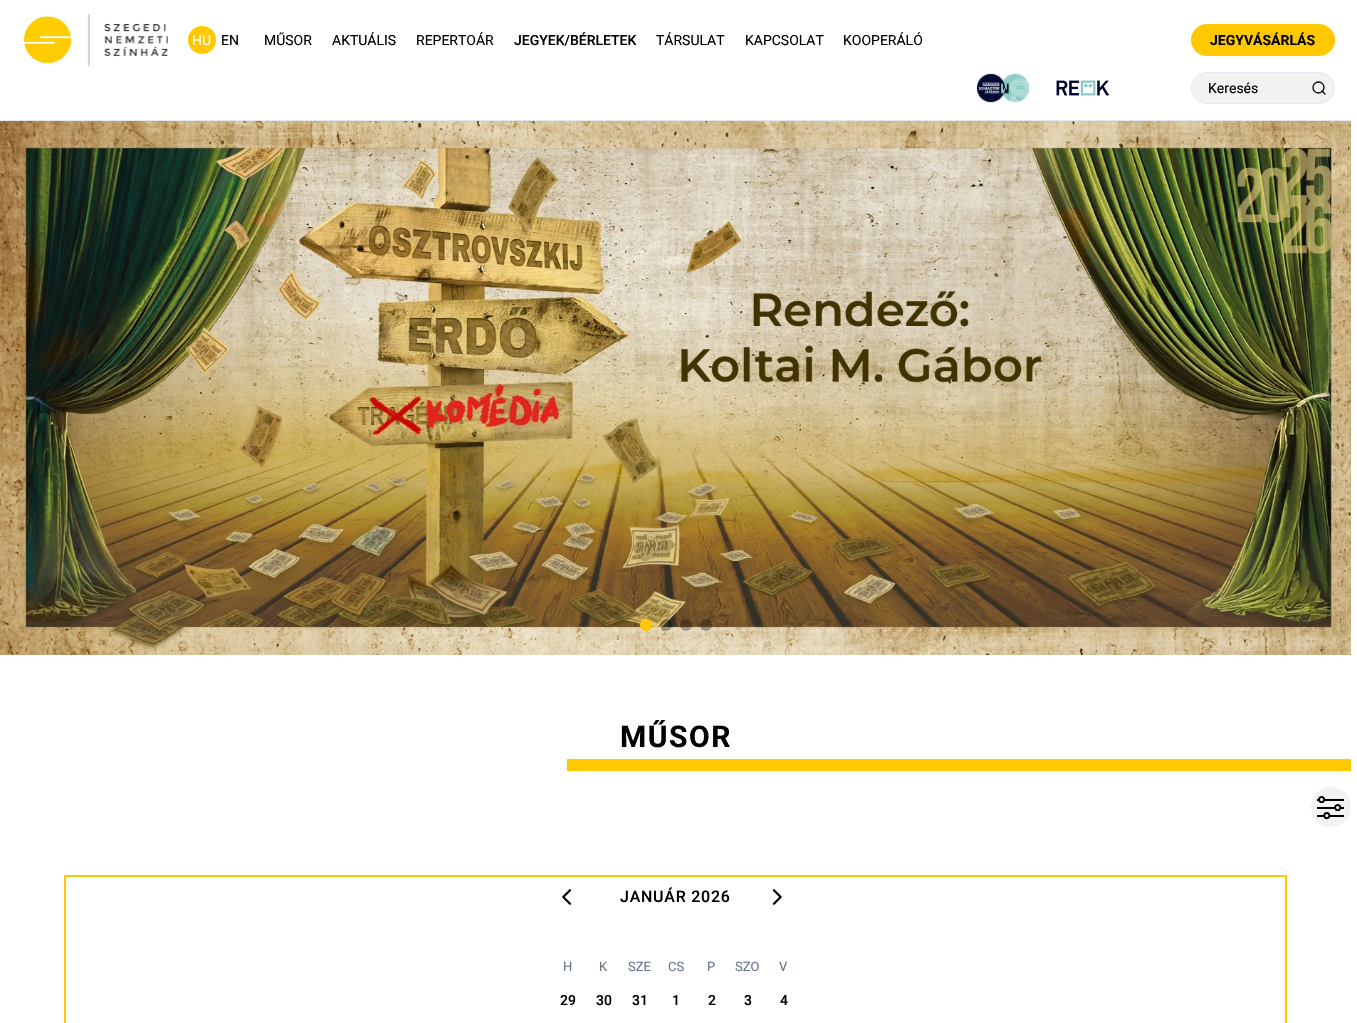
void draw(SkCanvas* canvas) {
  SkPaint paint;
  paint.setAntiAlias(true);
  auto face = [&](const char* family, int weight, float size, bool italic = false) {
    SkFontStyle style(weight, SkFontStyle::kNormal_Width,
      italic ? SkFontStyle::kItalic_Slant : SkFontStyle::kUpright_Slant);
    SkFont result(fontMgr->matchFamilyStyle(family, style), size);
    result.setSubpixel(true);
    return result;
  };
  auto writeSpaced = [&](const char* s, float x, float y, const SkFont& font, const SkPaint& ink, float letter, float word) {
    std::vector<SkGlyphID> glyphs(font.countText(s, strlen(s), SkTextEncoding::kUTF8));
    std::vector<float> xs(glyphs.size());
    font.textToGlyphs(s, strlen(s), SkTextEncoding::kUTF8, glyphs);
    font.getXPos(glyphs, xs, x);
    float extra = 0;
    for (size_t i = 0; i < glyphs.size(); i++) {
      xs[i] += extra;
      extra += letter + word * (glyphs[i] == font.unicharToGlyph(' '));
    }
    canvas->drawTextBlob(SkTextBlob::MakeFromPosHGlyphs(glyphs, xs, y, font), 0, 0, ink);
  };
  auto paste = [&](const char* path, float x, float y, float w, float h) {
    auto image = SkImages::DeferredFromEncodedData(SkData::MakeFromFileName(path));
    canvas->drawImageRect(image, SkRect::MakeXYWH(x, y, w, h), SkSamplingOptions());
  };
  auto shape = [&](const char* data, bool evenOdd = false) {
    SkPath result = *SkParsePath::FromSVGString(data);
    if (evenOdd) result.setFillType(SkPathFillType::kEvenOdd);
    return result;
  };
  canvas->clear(0xffffffff);
  paint.setColor(0xffe2e8f0);
  canvas->drawRect(SkRect::MakeXYWH(0, 120, 1351, 1), paint);
  paste("img/1.png", 24, 14, 144, 53);
  paint.setColor(0xffffc800);
  canvas->drawCircle(202, 40, 14, paint);
  canvas->drawRoundRect(SkRect::MakeXYWH(1191, 24, 144, 32), 16, 16, paint);
  paste("img/2.png", 976, 73, 54, 30);
  paste("img/3.png", 1056, 80, 54, 16);
  paint.setColor(0xfff2f2f2);
  canvas->drawRoundRect(SkRect::MakeXYWH(1191.5f, 72.5f, 143, 31), 15.5f, 15.5f, paint);
  paint.setStroke(true);
  paint.setStrokeWidth(1);
  paint.setColor(0xffe2e8f0);
  canvas->drawRoundRect(SkRect::MakeXYWH(1191.5f, 72.5f, 143, 31), 15.5f, 15.5f, paint);
  paint.setStrokeWidth(1.3f);
  paint.setColor(0xff000000);
  canvas->drawCircle(1318.5f, 87.5f, 5.5f, paint);
  paint.setStrokeCap(SkPaint::kRound_Cap);
  paint.setStrokeJoin(SkPaint::kRound_Join);
  canvas->drawPath(shape("M1325 94L1322 91"), paint);
  paste("img/4.png", 0, 121, 1351, 534);
  paint.setStroke(false);
  paint.setColor(0xffffc800);
  canvas->drawCircle(646, 625, 6, paint);
  paint.setColor(0x4d000000);
  canvas->drawCircle(666, 625, 6, paint);
  canvas->drawCircle(686, 625, 6, paint);
  canvas->drawCircle(706, 625, 6, paint);
  paint.setColor(0xffffc800);
  canvas->drawRect(SkRect::MakeXYWH(567, 759, 784, 12), paint);
  paste("img/5.png", 1311, 787, 40, 40);
  paint.setStroke(true);
  paint.setStrokeWidth(2);
  paint.setStrokeCap(SkPaint::kButt_Cap);
  paint.setStrokeJoin(SkPaint::kMiter_Join);
  canvas->drawRect(SkRect::MakeXYWH(65, 876, 1221, 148), paint);
  paste("img/6.png", 562, 889, 10, 16);
  paste("img/7.png", 772, 889, 10, 16);
  auto f0 = face("Roboto", 400, 14);
  paint.setStroke(false);
  paint.setColor(0xffffffff);
  canvas->drawString("HU", 192, 45, f0, paint);
  paint.setColor(0xff000000);
  {
    const struct { const char* s; float x, y; } items[] = {
      {"EN", 221, 45},
      {"MŰSOR", 264, 45},
      {"AKTUÁLIS", 332, 45},
      {"REPERTOÁR", 416, 45},
    };
    for (auto [s, x, y] : items) {
      canvas->drawString(s, x, y, f0, paint);
    }
  }
  auto f1 = face("Roboto", 500, 14);
  canvas->drawString("JEGYEK/BÉRLETEK", 514, 45, f1, paint);
  {
    const struct { const char* s; float x, y; } items[] = {
      {"TÁRSULAT", 656, 45},
      {"KAPCSOLAT", 745, 45},
      {"KOOPERÁLÓ", 843, 45},
    };
    for (auto [s, x, y] : items) {
      canvas->drawString(s, x, y, f0, paint);
    }
  }
  auto f2 = face("Roboto", 700, 14);
  canvas->drawString("JEGYVÁSÁRLÁS", 1210, 45, f2, paint);
  canvas->drawString("Keresés", 1208, 93, f0, paint);
  auto f3 = face("Roboto", 700, 30);
  writeSpaced("MŰSOR", 620, 747, f3, paint, 1.5f, 0);
  auto f4 = face("Roboto", 500, 16);
  writeSpaced("JANUÁR 2026", 620, 902, f4, paint, 0.75f, 0);
  auto f5 = face("Roboto", 400, 13);
  paint.setColor(0xff64748b);
  {
    const struct { const char* s; float x, y; } items[] = {
      {"H", 563, 971},
      {"K", 599, 971},
      {"SZE", 628, 971},
      {"CS", 668, 971},
      {"P", 707, 971},
      {"SZO", 735, 971},
      {"V", 779, 971},
    };
    for (auto [s, x, y] : items) {
      canvas->drawString(s, x, y, f5, paint);
    }
  }
  paint.setColor(0xff000000);
  {
    const struct { const char* s; float x, y; } items[] = {
      {"29", 560, 1005},
      {"30", 596, 1005},
      {"31", 632, 1005},
      {"1", 672, 1005},
      {"2", 708, 1005},
      {"3", 744, 1005},
      {"4", 780, 1005},
    };
    for (auto [s, x, y] : items) {
      canvas->drawString(s, x, y, f1, paint);
    }
  }
}
